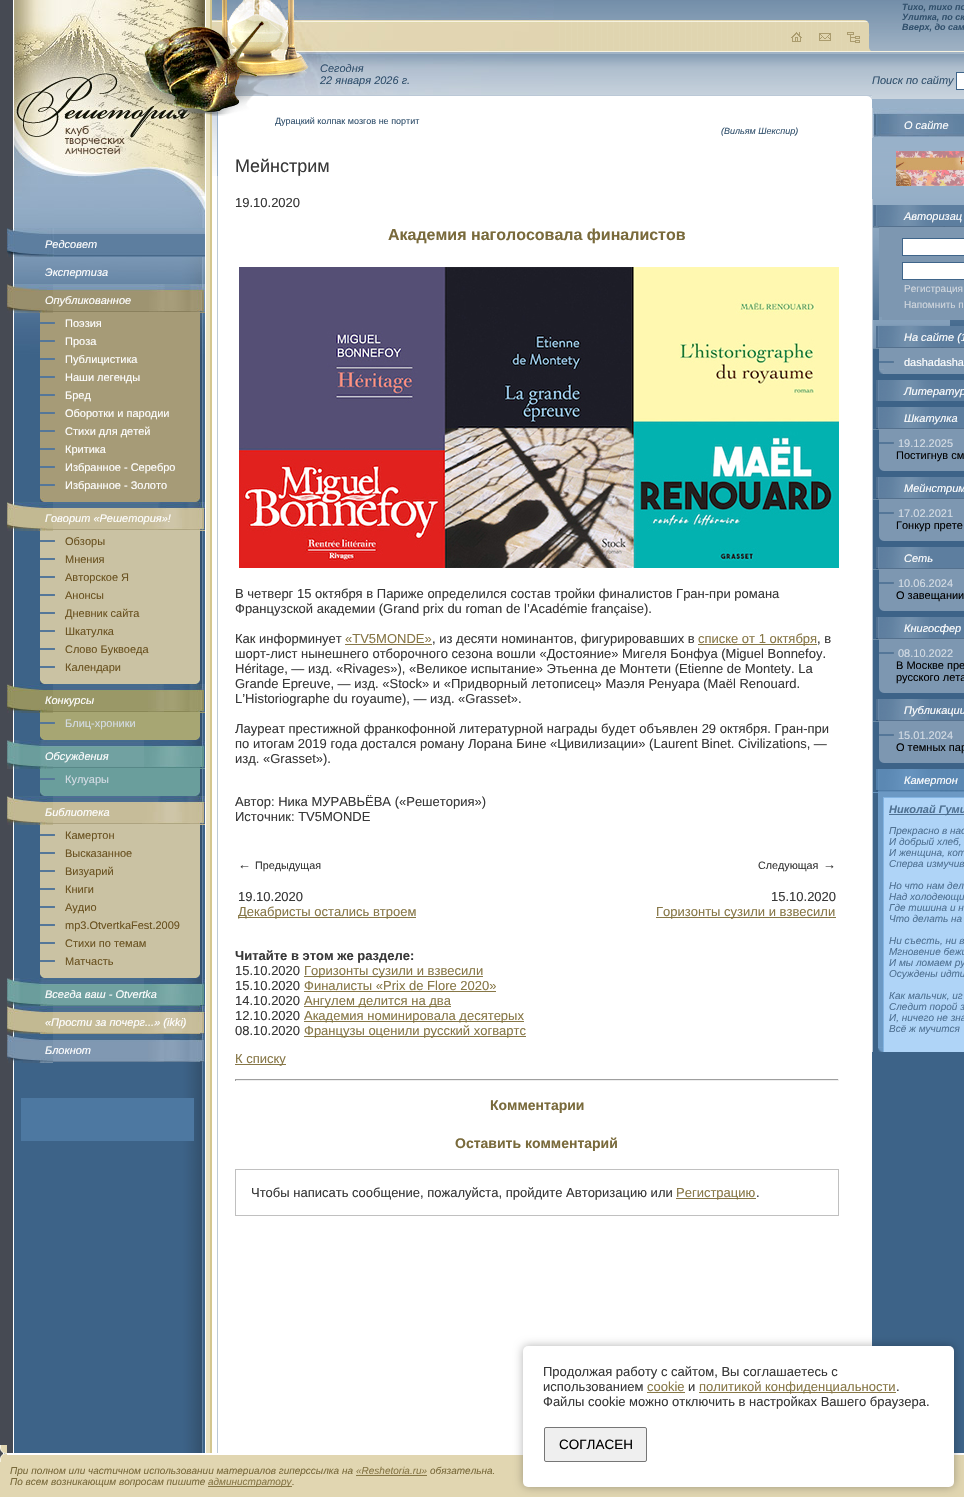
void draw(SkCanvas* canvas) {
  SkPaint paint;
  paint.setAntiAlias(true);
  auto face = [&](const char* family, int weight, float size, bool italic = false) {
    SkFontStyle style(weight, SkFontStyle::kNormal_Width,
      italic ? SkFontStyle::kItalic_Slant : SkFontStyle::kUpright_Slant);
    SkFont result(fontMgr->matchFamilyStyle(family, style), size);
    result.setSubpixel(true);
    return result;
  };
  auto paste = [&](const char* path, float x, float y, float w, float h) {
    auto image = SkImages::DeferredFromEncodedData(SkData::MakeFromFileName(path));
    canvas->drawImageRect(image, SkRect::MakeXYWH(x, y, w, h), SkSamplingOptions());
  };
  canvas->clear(0xffffffff);
  paste("img/1.png", 0, 0, 218, 1453);
  paste("img/2.png", 14, 0, 191, 354);
  paste("img/3.png", 14, 65, 177, 98);
  paste("img/4.png", 54, 228, 151, 29);
  paste("img/5.png", 7, 228, 47, 29);
  paste("img/6.png", 53, 284, 152, 29);
  paint.setColor(0xffa69b77);
  canvas->drawRect(SkRect::MakeXYWH(40, 312, 160, 190), paint);
  paste("img/7.png", 7, 284, 46, 29);
  paste("img/8.png", 149, 284, 56, 28);
  paste("img/9.png", 196, 497, 4, 5);
  paste("img/10.png", 40, 497, 4, 5);
  paste("img/11.png", 40, 322, 15, 2);
  paste("img/11.png", 40, 340, 15, 2);
  paste("img/11.png", 40, 358, 15, 2);
  paste("img/11.png", 40, 376, 15, 2);
  paste("img/11.png", 40, 394, 15, 2);
  paste("img/11.png", 40, 412, 15, 2);
  paste("img/11.png", 40, 430, 15, 2);
  paste("img/11.png", 40, 448, 15, 2);
  paste("img/11.png", 40, 466, 15, 2);
  paste("img/11.png", 40, 484, 15, 2);
  paste("img/12.png", 53, 502, 152, 29);
  paint.setColor(0xffcac2a3);
  canvas->drawRect(SkRect::MakeXYWH(40, 530, 160, 154), paint);
  paste("img/13.png", 7, 502, 46, 29);
  paste("img/14.png", 142, 502, 63, 28);
  paste("img/15.png", 196, 680, 4, 4);
  paste("img/16.png", 40, 680, 4, 4);
  paste("img/11.png", 40, 540, 15, 2);
  paste("img/11.png", 40, 558, 15, 2);
  paste("img/11.png", 40, 576, 15, 2);
  paste("img/11.png", 40, 594, 15, 2);
  paste("img/11.png", 40, 612, 15, 2);
  paste("img/11.png", 40, 630, 15, 2);
  paste("img/11.png", 40, 648, 15, 2);
  paste("img/11.png", 40, 666, 15, 2);
  paste("img/17.png", 53, 684, 152, 29);
  paint.setColor(0xffa7a673);
  canvas->drawRect(SkRect::MakeXYWH(40, 712, 160, 28), paint);
  paste("img/18.png", 7, 684, 46, 29);
  paste("img/19.png", 148, 684, 57, 28);
  paste("img/20.png", 196, 736, 4, 4);
  paste("img/21.png", 40, 736, 4, 4);
  paste("img/11.png", 40, 722, 15, 2);
  paste("img/22.png", 53, 740, 152, 29);
  paint.setColor(0xff6a9e9c);
  canvas->drawRect(SkRect::MakeXYWH(40, 768, 160, 28), paint);
  paste("img/23.png", 7, 740, 46, 29);
  paste("img/24.png", 144, 740, 61, 28);
  paste("img/25.png", 196, 792, 4, 4);
  paste("img/26.png", 40, 792, 4, 4);
  paste("img/11.png", 40, 778, 15, 2);
  paste("img/12.png", 53, 796, 152, 29);
  paint.setColor(0xffcac2a3);
  canvas->drawRect(SkRect::MakeXYWH(40, 824, 160, 154), paint);
  paste("img/13.png", 7, 796, 46, 29);
  paste("img/14.png", 142, 796, 63, 28);
  paste("img/15.png", 196, 974, 4, 4);
  paste("img/16.png", 40, 974, 4, 4);
  paste("img/11.png", 40, 834, 15, 2);
  paste("img/11.png", 40, 852, 15, 2);
  paste("img/11.png", 40, 870, 15, 2);
  paste("img/11.png", 40, 888, 15, 2);
  paste("img/11.png", 40, 906, 15, 2);
  paste("img/11.png", 40, 924, 15, 2);
  paste("img/11.png", 40, 942, 15, 2);
  paste("img/11.png", 40, 960, 15, 2);
  paste("img/27.png", 53, 978, 91, 28);
  paste("img/28.png", 7, 978, 46, 28);
  paste("img/24.png", 144, 978, 61, 28);
  paste("img/29.png", 53, 1006, 89, 28);
  paste("img/30.png", 7, 1006, 46, 28);
  paste("img/14.png", 142, 1006, 63, 28);
  paste("img/31.png", 53, 1034, 95, 28);
  paste("img/32.png", 7, 1034, 46, 29);
  paste("img/33.png", 148, 1034, 57, 28);
  paint.setColor(0xff4d78a1);
  canvas->drawRect(SkRect::MakeXYWH(21, 1098, 173, 43), paint);
  paste("img/34.png", 206, 0, 12, 1428);
  paste("img/36.png", 217, 0, 655, 176);
  paste("img/37.png", 212, 0, 5, 176);
  paste("img/39.png", 217, 0, 337, 95);
  paint.setColor(0xffffffff);
  canvas->drawRect(SkRect::MakeXYWH(218, 96, 654, 80), paint);
  paint.setColor(0xffbbc8d6);
  canvas->drawRect(SkRect::MakeXYWH(235, 95, 637, 1), paint);
  paste("img/35.png", 140, 0, 169, 116);
  paste("img/38.png", 554, 20, 310, 31);
  paste("img/40.png", 864, 20, 8, 31);
  paste("img/41.png", 791, 32, 11, 10);
  paste("img/42.png", 819, 33, 12, 8);
  paste("img/43.png", 847, 32, 13, 11);
  paste("img/44.png", 867, 96, 5, 4);
  paste("img/45.png", 239, 267, 600, 301);
  {
    const struct { float x, y, w, h; SkColor color; } items[] = {
      {345, 644, 87, 1, 0xff877747},
      {698, 644, 119, 1, 0xff877747},
      {238, 917, 178, 1, 0xff877747},
      {656, 917, 180, 1, 0xff877747},
      {304, 976, 179, 1, 0xff877747},
      {304, 991, 192, 1, 0xff877747},
      {304, 1006, 147, 1, 0xff877747},
      {304, 1021, 220, 1, 0xff877747},
      {304, 1036, 222, 1, 0xff877747},
      {235, 1064, 51, 1, 0xff877747},
      {235, 1079, 604, 1, 0xff9f9f9f},
      {838, 1079, 1, 2, 0xffeeeeee},
      {235, 1080, 604, 1, 0xffeeeeee},
      {235, 1079, 1, 2, 0xff9f9f9f},
    };
    for (auto [x, y, w, h, color] : items) {
      paint.setColor(color);
      canvas->drawRect(SkRect::MakeXYWH(x, y, w, h), paint);
    }
  }
  paint.setStroke(true);
  paint.setStrokeWidth(1);
  paint.setColor(0xffc0c0c0);
  canvas->drawRect(SkRect::MakeXYWH(235.5f, 1169.5f, 603, 46), paint);
  paint.setStroke(false);
  paint.setColor(0xff877747);
  canvas->drawRect(SkRect::MakeXYWH(676, 1198, 80, 1), paint);
  paint.setColor(0xff3d6388);
  canvas->drawRect(SkRect::MakeXYWH(872, 349, 92, 1079), paint);
  paste("img/46.png", 872, 0, 92, 326);
  paint.setColor(0xffffffff);
  canvas->drawRect(SkRect::MakeXYWH(956.5f, 72.5f, 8, 17), paint);
  paint.setStroke(true);
  paint.setColor(0xff3f658a);
  canvas->drawRect(SkRect::MakeXYWH(956.5f, 72.5f, 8, 17), paint);
  paint.setStroke(false);
  paint.setColor(0xffbbc8d6);
  canvas->drawRect(SkRect::MakeXYWH(872, 108, 1, 30), paint);
  paste("img/47.png", 873, 108, 91, 29);
  paste("img/48.png", 896, 151, 68, 35);
  paste("img/49.png", 873, 205, 91, 23);
  canvas->drawRect(SkRect::MakeXYWH(872, 199, 1, 853), paint);
  paste("img/50.png", 874, 205, 71, 22);
  paint.setColor(0xff7d97b1);
  canvas->drawRect(SkRect::MakeXYWH(879, 227, 85, 93), paint);
  paint.setColor(0xff829db7);
  canvas->drawRect(SkRect::MakeXYWH(879, 317, 3, 3), paint);
  paint.setColor(0xffffffff);
  canvas->drawRect(SkRect::MakeXYWH(902.5f, 238.5f, 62, 17), paint);
  paint.setStroke(true);
  paint.setColor(0xff3f658a);
  canvas->drawRect(SkRect::MakeXYWH(902.5f, 238.5f, 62, 17), paint);
  paint.setStroke(false);
  paint.setColor(0xffffffff);
  canvas->drawRect(SkRect::MakeXYWH(902.5f, 262.5f, 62, 17), paint);
  paint.setStroke(true);
  paint.setColor(0xff3f658a);
  canvas->drawRect(SkRect::MakeXYWH(902.5f, 262.5f, 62, 17), paint);
  paste("img/49.png", 873, 326, 91, 23);
  paste("img/51.png", 873, 320, 77, 28);
  paint.setStroke(false);
  paint.setColor(0xff7d97b1);
  canvas->drawRect(SkRect::MakeXYWH(879, 348, 85, 26), paint);
  paste("img/52.png", 879, 369, 5, 5);
  paste("img/11.png", 879, 361, 15, 2);
  paint.setColor(0xff5d7e9f);
  canvas->drawRect(SkRect::MakeXYWH(946, 380, 18, 21), paint);
  paste("img/53.png", 873, 380, 73, 21);
  paste("img/49.png", 873, 407, 91, 23);
  paste("img/54.png", 873, 407, 56, 22);
  paint.setColor(0xff7d97b1);
  canvas->drawRect(SkRect::MakeXYWH(879, 429, 85, 42), paint);
  paste("img/55.png", 879, 466, 5, 5);
  paste("img/11.png", 879, 442, 15, 2);
  paste("img/49.png", 873, 477, 91, 23);
  paste("img/54.png", 873, 477, 56, 22);
  canvas->drawRect(SkRect::MakeXYWH(879, 499, 85, 42), paint);
  paste("img/55.png", 879, 536, 5, 5);
  paste("img/11.png", 879, 512, 15, 2);
  paste("img/49.png", 873, 547, 91, 23);
  paste("img/54.png", 873, 547, 56, 22);
  canvas->drawRect(SkRect::MakeXYWH(879, 569, 85, 42), paint);
  paste("img/55.png", 879, 606, 5, 5);
  paste("img/11.png", 879, 582, 15, 2);
  paste("img/49.png", 873, 617, 91, 23);
  paste("img/54.png", 873, 617, 56, 22);
  canvas->drawRect(SkRect::MakeXYWH(879, 639, 85, 54), paint);
  paste("img/55.png", 879, 688, 5, 5);
  paste("img/11.png", 879, 652, 15, 2);
  paste("img/49.png", 873, 699, 91, 23);
  paste("img/54.png", 873, 699, 56, 22);
  canvas->drawRect(SkRect::MakeXYWH(879, 721, 85, 42), paint);
  paste("img/55.png", 879, 758, 5, 5);
  paste("img/11.png", 879, 734, 15, 2);
  paste("img/56.png", 873, 769, 91, 24);
  paste("img/57.png", 873, 769, 67, 23);
  paint.setColor(0xff6c99c4);
  canvas->drawRect(SkRect::MakeXYWH(878, 792, 86, 255), paint);
  paste("img/58.png", 878, 1047, 5, 5);
  paint.setColor(0xffafd4f7);
  canvas->drawRect(SkRect::MakeXYWH(884, 798, 80, 254), paint);
  canvas->save();
  canvas->clipRect(SkRect::MakeXYWH(878, 797, 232, 255));
  paint.setStroke(true);
  paint.setColor(0xff83b4e2);
  canvas->drawRect(SkRect::MakeXYWH(883.5f, 797.5f, 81, 362), paint);
  canvas->restore();
  paint.setStroke(false);
  paint.setColor(0xff4f7192);
  canvas->drawRect(SkRect::MakeXYWH(889, 814, 75, 1), paint);
  paint.setColor(0xff3d6388);
  canvas->drawRect(SkRect::MakeXYWH(954, 1428, 10, 25), paint);
  paste("img/59.png", 0, 1445, 7, 8);
  paint.setColor(0xffe1d6b1);
  canvas->drawRect(SkRect::MakeXYWH(0, 1455, 964, 42), paint);
  paste("img/60.png", 0, 1453, 7, 9);
  paint.setColor(0xff877747);
  canvas->drawRect(SkRect::MakeXYWH(356, 1475, 71, 1), paint);
  canvas->drawRect(SkRect::MakeXYWH(208, 1486, 84, 1), paint);
  paint.setColor(0x4d000000);
  paint.setMaskFilter(SkMaskFilter::MakeBlur(kNormal_SkBlurStyle, 5));
  canvas->drawRoundRect(SkRect::MakeXYWH(523, 1346, 431, 141), 5, 5, paint);
  paint.setMaskFilter(nullptr);
  paint.setColor(0xffffffff);
  canvas->drawRoundRect(SkRect::MakeXYWH(523, 1346, 431, 141), 5, 5, paint);
  paint.setColor(0xff877747);
  canvas->drawRect(SkRect::MakeXYWH(647, 1392, 38, 1), paint);
  canvas->drawRect(SkRect::MakeXYWH(699, 1392, 197, 1), paint);
  paint.setColor(0xffefefef);
  canvas->drawRoundRect(SkRect::MakeXYWH(544.5f, 1427.5f, 102, 34), 1.5f, 1.5f, paint);
  paint.setStroke(true);
  paint.setColor(0xff767676);
  canvas->drawRoundRect(SkRect::MakeXYWH(544.5f, 1427.5f, 102, 34), 1.5f, 1.5f, paint);
  auto f0 = face("Liberation Sans", 400, 11, true);
  paint.setStroke(false);
  paint.setColor(0xffffffff);
  {
    const struct { const char* s; float x, y; } items[] = {
      {"Редсовет", 45, 248},
      {"Экспертиза", 45, 276},
      {"Опубликованное", 45, 304},
    };
    for (auto [s, x, y] : items) {
      canvas->drawString(s, x, y, f0, paint);
    }
  }
  auto f1 = face("Liberation Sans", 400, 11);
  {
    const struct { const char* s; float x, y; } items[] = {
      {"Поэзия", 65, 327},
      {"Проза", 65, 345},
      {"Публицистика", 65, 363},
      {"Наши легенды", 65, 381},
      {"Бред", 65, 399},
      {"Оборотки и пародии", 65, 417},
      {"Стихи для детей", 65, 435},
      {"Критика", 65, 453},
      {"Избранное - Серебро", 65, 471},
      {"Избранное - Золото", 65, 489},
    };
    for (auto [s, x, y] : items) {
      canvas->drawString(s, x, y, f1, paint);
    }
  }
  canvas->drawString("Говорит «Решетория»!", 45, 522, f0, paint);
  paint.setColor(0xff69511f);
  {
    const struct { const char* s; float x, y; } items[] = {
      {"Обзоры", 65, 545},
      {"Мнения", 65, 563},
      {"Авторское Я", 65, 581},
      {"Анонсы", 65, 599},
      {"Дневник сайта", 65, 617},
      {"Шкатулка", 65, 635},
      {"Слово Буквоеда", 65, 653},
      {"Календари", 65, 671},
    };
    for (auto [s, x, y] : items) {
      canvas->drawString(s, x, y, f1, paint);
    }
  }
  paint.setColor(0xffffffff);
  canvas->drawString("Конкурсы", 45, 704, f0, paint);
  paint.setColor(0xffd4dce5);
  canvas->drawString("Блиц-хроники", 65, 727, f1, paint);
  paint.setColor(0xffffffff);
  canvas->drawString("Обсуждения", 45, 760, f0, paint);
  paint.setColor(0xffd4dce5);
  canvas->drawString("Кулуары", 65, 783, f1, paint);
  paint.setColor(0xffffffff);
  canvas->drawString("Библиотека", 45, 816, f0, paint);
  paint.setColor(0xff69511f);
  {
    const struct { const char* s; float x, y; } items[] = {
      {"Камертон", 65, 839},
      {"Высказанное", 65, 857},
      {"Визуарий", 65, 875},
      {"Книги", 65, 893},
      {"Аудио", 65, 911},
      {"mp3.OtvertkaFest.2009", 65, 929},
      {"Стихи по темам", 65, 947},
      {"Матчасть", 65, 965},
    };
    for (auto [s, x, y] : items) {
      canvas->drawString(s, x, y, f1, paint);
    }
  }
  paint.setColor(0xffffffff);
  {
    const struct { const char* s; float x, y; } items[] = {
      {"Всегда ваш - Otvertka", 45, 998},
      {"«Прости за почерг...» (ikki)", 45, 1026},
      {"Блокнот", 45, 1054},
    };
    for (auto [s, x, y] : items) {
      canvas->drawString(s, x, y, f0, paint);
    }
  }
  paint.setColor(0xff32516d);
  canvas->drawString("Сегодня", 320, 72, f0, paint);
  canvas->drawString("22 января 2026 г.", 320, 84, f0, paint);
  auto f2 = face("Liberation Sans", 400, 9);
  canvas->drawString("Дурацкий колпак мозгов не портит", 275, 124, f2, paint);
  auto f3 = face("Liberation Sans", 400, 9, true);
  canvas->drawString("(Вильям Шекспир)", 721, 134, f3, paint);
  auto f4 = face("Liberation Sans", 400, 18);
  paint.setColor(0xff383838);
  canvas->drawString("Мейнстрим", 235, 172, f4, paint);
  auto f5 = face("Liberation Sans", 400, 13);
  canvas->drawString("19.10.2020", 235, 207, f5, paint);
  auto f6 = face("Liberation Sans", 700, 16);
  paint.setColor(0xff796a3b);
  canvas->drawString("Академия наголосовала финалистов", 388, 240, f6, paint);
  paint.setColor(0xff383838);
  {
    const struct { const char* s; float x, y; } items[] = {
      {"В четверг 15 октября в Париже определился состав тройки финалистов Гран-при романа", 235, 598},
      {"Французской академии (Grand prix du roman de l’Académie française).", 235, 613},
      {"Как информинует", 235, 643},
    };
    for (auto [s, x, y] : items) {
      canvas->drawString(s, x, y, f5, paint);
    }
  }
  paint.setColor(0xff877747);
  canvas->drawString("«TV5MONDE»", 345, 643, f5, paint);
  paint.setColor(0xff383838);
  canvas->drawString(", из десяти номинантов, фигурировавших в", 432, 643, f5, paint);
  paint.setColor(0xff877747);
  canvas->drawString("списке от 1 октября", 698, 643, f5, paint);
  paint.setColor(0xff383838);
  {
    const struct { const char* s; float x, y; } items[] = {
      {", в", 817, 643},
      {"шорт-лист нынешнего отборочного сезона вошли «Достояние» Мигеля Бонфуа (Miguel Bonnefoy.", 235, 658},
      {"Héritage, — изд. «Rivages»), «Великое испытание» Этьенна де Монтети (Etienne de Montety. La", 235, 673},
      {"Grande Epreuve, — изд. «Stock» и «Придворный летописец» Маэля Ренуара (Maël Renouard.", 235, 688},
      {"L’Historiographe du royaume), — изд. «Grasset».", 235, 703},
      {"Лауреат престижной франкофонной литературной награды будет объявлен 29 октября. Гран-при", 235, 733},
      {"по итогам 2019 года достался роману Лорана Бине «Цивилизации» (Laurent Binet. Civilizations, —", 235, 748},
      {"изд. «Grasset»).", 235, 763},
      {"Автор: Ника МУРАВЬЁВА («Решетория»)", 235, 806},
      {"Источник: TV5MONDE", 235, 821},
      {"←", 238, 869},
    };
    for (auto [s, x, y] : items) {
      canvas->drawString(s, x, y, f5, paint);
    }
  }
  auto f7 = face("Liberation Sans", 400, 10.75f);
  canvas->drawString("Предыдущая", 255, 869, f7, paint);
  canvas->drawString("Следующая", 758, 869, f7, paint);
  canvas->drawString("→", 823, 869, f5, paint);
  canvas->drawString("19.10.2020", 238, 901, f5, paint);
  paint.setColor(0xff877747);
  canvas->drawString("Декабристы остались втроем", 238, 916, f5, paint);
  paint.setColor(0xff383838);
  canvas->drawString("15.10.2020", 771, 901, f5, paint);
  paint.setColor(0xff877747);
  canvas->drawString("Горизонты сузили и взвесили", 656, 916, f5, paint);
  auto f8 = face("Liberation Sans", 700, 13);
  paint.setColor(0xff383838);
  canvas->drawString("Читайте в этом же разделе:", 235, 960, f8, paint);
  canvas->drawString("15.10.2020", 235, 975, f5, paint);
  paint.setColor(0xff877747);
  canvas->drawString("Горизонты сузили и взвесили", 304, 975, f5, paint);
  paint.setColor(0xff383838);
  canvas->drawString("15.10.2020", 235, 990, f5, paint);
  paint.setColor(0xff877747);
  canvas->drawString("Финалисты «Prix de Flore 2020»", 304, 990, f5, paint);
  paint.setColor(0xff383838);
  canvas->drawString("14.10.2020", 235, 1005, f5, paint);
  paint.setColor(0xff877747);
  canvas->drawString("Ангулем делится на два", 304, 1005, f5, paint);
  paint.setColor(0xff383838);
  canvas->drawString("12.10.2020", 235, 1020, f5, paint);
  paint.setColor(0xff877747);
  canvas->drawString("Академия номинировала десятерых", 304, 1020, f5, paint);
  paint.setColor(0xff383838);
  canvas->drawString("08.10.2020", 235, 1035, f5, paint);
  paint.setColor(0xff877747);
  canvas->drawString("Французы оценили русский хогвартс", 304, 1035, f5, paint);
  canvas->drawString("К списку", 235, 1063, f5, paint);
  auto f9 = face("Liberation Sans", 700, 14);
  paint.setColor(0xff796a3b);
  canvas->drawString("Комментарии", 490, 1110, f9, paint);
  canvas->drawString("Оставить комментарий", 455, 1148, f9, paint);
  paint.setColor(0xff383838);
  canvas->drawString("Чтобы написать сообщение, пожалуйста, пройдите Авторизацию или", 251, 1197, f5, paint);
  paint.setColor(0xff877747);
  canvas->drawString("Регистрацию", 676, 1197, f5, paint);
  paint.setColor(0xff383838);
  canvas->drawString(".", 756, 1197, f5, paint);
  auto f10 = face("Liberation Sans", 700, 9, true);
  paint.setColor(0xff32516d);
  {
    const struct { const char* s; float x, y; } items[] = {
      {"Тихо, тихо по", 902, 10},
      {"Улитка, по ск", 902, 20},
      {"Вверх, до сам", 902, 30},
    };
    for (auto [s, x, y] : items) {
      canvas->drawString(s, x, y, f10, paint);
    }
  }
  canvas->drawString("Поиск по сайту", 872, 84, f0, paint);
  paint.setColor(0xffffffff);
  canvas->drawString("О сайте", 904, 129, f0, paint);
  canvas->drawString("Авторизац", 904, 220, f0, paint);
  auto f11 = face("Liberation Sans", 400, 10);
  paint.setColor(0xffd1d7de);
  canvas->drawString("Регистрация", 904, 292, f11, paint);
  canvas->drawString("Напомнить п", 904, 308, f11, paint);
  paint.setColor(0xffffffff);
  canvas->drawString("На сайте (1", 904, 341, f0, paint);
  canvas->drawString("dashadasha", 904, 366, f1, paint);
  canvas->drawString("Литератур", 904, 395, f0, paint);
  canvas->drawString("Шкатулка", 904, 422, f0, paint);
  paint.setColor(0xffd4dce5);
  canvas->drawString("19.12.2025", 898, 447, f1, paint);
  paint.setColor(0xff000000);
  canvas->drawString("Постигнув см", 896, 459, f1, paint);
  paint.setColor(0xffffffff);
  canvas->drawString("Мейнстрим", 904, 492, f0, paint);
  paint.setColor(0xffd4dce5);
  canvas->drawString("17.02.2021", 898, 517, f1, paint);
  paint.setColor(0xff000000);
  canvas->drawString("Гонкур прете", 896, 529, f1, paint);
  paint.setColor(0xffffffff);
  canvas->drawString("Сеть", 904, 562, f0, paint);
  paint.setColor(0xffd4dce5);
  canvas->drawString("10.06.2024", 898, 587, f1, paint);
  paint.setColor(0xff000000);
  canvas->drawString("О завещании", 896, 599, f1, paint);
  paint.setColor(0xffffffff);
  canvas->drawString("Книгосфер", 904, 632, f0, paint);
  paint.setColor(0xffd4dce5);
  canvas->drawString("08.10.2022", 898, 657, f1, paint);
  paint.setColor(0xff000000);
  canvas->drawString("В Москве пре", 896, 669, f1, paint);
  canvas->drawString("русского лета", 896, 681, f1, paint);
  paint.setColor(0xffffffff);
  canvas->drawString("Публикации", 904, 714, f0, paint);
  paint.setColor(0xffd4dce5);
  canvas->drawString("15.01.2024", 898, 739, f1, paint);
  paint.setColor(0xff000000);
  canvas->drawString("О темных пар", 896, 751, f1, paint);
  paint.setColor(0xffffffff);
  canvas->drawString("Камертон", 904, 784, f0, paint);
  auto f12 = face("Liberation Sans", 700, 11, true);
  paint.setColor(0xff4f7192);
  canvas->drawString("Николай Гуми", 889, 813, f12, paint);
  auto f13 = face("Liberation Sans", 400, 10, true);
  {
    const struct { const char* s; float x, y; } items[] = {
      {"Прекрасно в нас", 889, 834},
      {"И добрый хлеб,", 889, 845},
      {"И женщина, кот", 889, 856},
      {"Сперва измучив", 889, 867},
      {"Но что нам дел", 889, 889},
      {"Над холодеющи", 889, 900},
      {"Где тишина и н", 889, 911},
      {"Что делать на", 889, 922},
      {"Ни съесть, ни в", 889, 944},
      {"Мгновение бежи", 889, 955},
      {"И мы ломаем ру", 889, 966},
      {"Осуждены идти", 889, 977},
      {"Как мальчик, иг", 889, 999},
      {"Следит порой з", 889, 1010},
      {"И, ничего не зна", 889, 1021},
      {"Всё ж мучится", 889, 1032},
    };
    for (auto [s, x, y] : items) {
      canvas->drawString(s, x, y, f13, paint);
    }
  }
  paint.setColor(0xff796a3b);
  canvas->drawString("При полном или частичном использовании материалов гиперссылка на", 10, 1474, f13, paint);
  paint.setColor(0xff877747);
  canvas->drawString("«Reshetoria.ru»", 356, 1474, f13, paint);
  paint.setColor(0xff796a3b);
  canvas->drawString("обязательна.", 430, 1474, f13, paint);
  canvas->drawString("По всем возникающим вопросам пишите", 10, 1485, f13, paint);
  paint.setColor(0xff877747);
  canvas->drawString("администратору", 208, 1485, f13, paint);
  paint.setColor(0xff796a3b);
  canvas->drawString(".", 292, 1485, f13, paint);
  paint.setColor(0xff383838);
  canvas->drawString("Продолжая работу с сайтом, Вы соглашаетесь с", 543, 1376, f5, paint);
  canvas->drawString("использованием", 543, 1391, f5, paint);
  paint.setColor(0xff877747);
  canvas->drawString("cookie", 647, 1391, f5, paint);
  paint.setColor(0xff383838);
  canvas->drawString("и", 688, 1391, f5, paint);
  paint.setColor(0xff877747);
  canvas->drawString("политикой конфиденциальности", 699, 1391, f5, paint);
  paint.setColor(0xff383838);
  canvas->drawString(".", 896, 1391, f5, paint);
  canvas->drawString("Файлы cookie можно отключить в настройках Вашего браузера.", 543, 1406, f5, paint);
  auto f14 = face("Liberation Sans", 400, 13.5f);
  paint.setColor(0xff000000);
  canvas->drawString("СОГЛАСЕН", 559, 1449, f14, paint);
}
